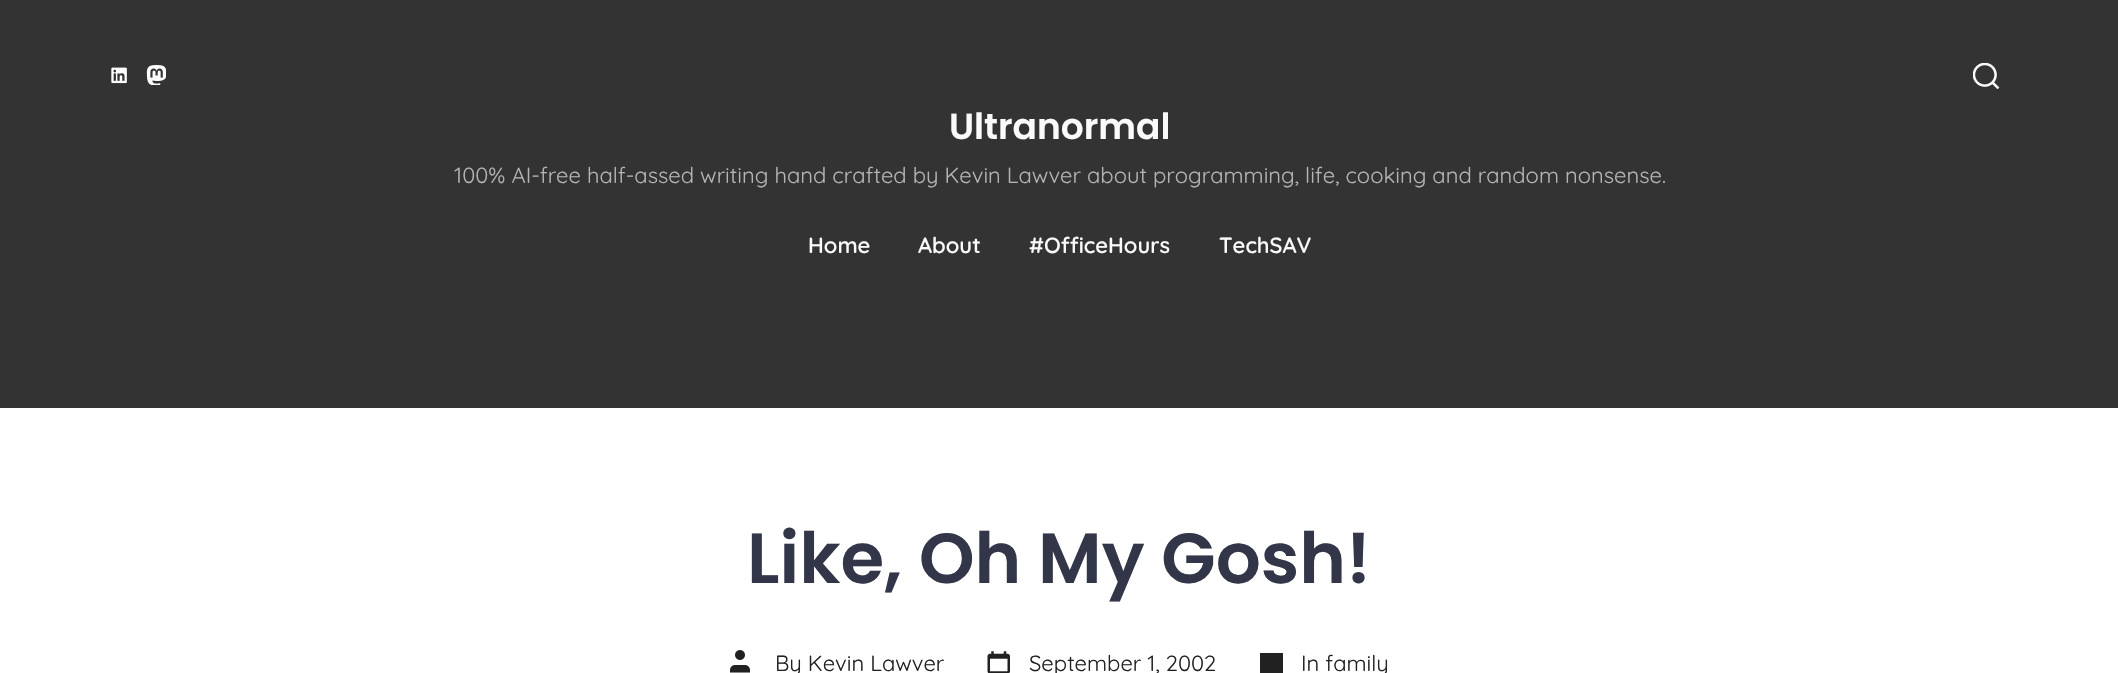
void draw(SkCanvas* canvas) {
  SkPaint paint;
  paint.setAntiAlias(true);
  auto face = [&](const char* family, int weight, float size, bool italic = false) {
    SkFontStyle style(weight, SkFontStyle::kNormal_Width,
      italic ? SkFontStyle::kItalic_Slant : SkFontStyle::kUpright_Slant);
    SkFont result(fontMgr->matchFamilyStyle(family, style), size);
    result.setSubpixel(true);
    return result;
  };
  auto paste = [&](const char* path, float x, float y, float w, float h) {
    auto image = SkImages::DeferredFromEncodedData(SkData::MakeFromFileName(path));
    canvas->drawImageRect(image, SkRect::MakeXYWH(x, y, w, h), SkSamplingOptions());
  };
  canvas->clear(0xffffffff);
  paint.setColor(0xff333333);
  canvas->drawRect(SkRect::MakeXYWH(0, 0, 2118, 408), paint);
  paste("img/1.png", 111, 67, 16, 17);
  paste("img/2.png", 146, 65, 20, 20);
  paste("img/3.png", 1973, 63, 27, 26);
  paste("img/4.png", 730, 650, 20, 23);
  paste("img/5.png", 987, 651, 23, 22);
  paint.setColor(0xff212121);
  canvas->drawRect(SkRect::MakeXYWH(1260, 653, 23, 20), paint);
  auto f0 = face("Poppins", 600, 36);
  paint.setColor(0xfffafafa);
  canvas->drawString("Ultranormal", 949, 139, f0, paint);
  auto f1 = face("Quicksand", 400, 22);
  paint.setColor(0xffb4b4b4);
  canvas->drawString("100% AI-free half-assed writing hand crafted by Kevin Lawver about programming, life, cooking and random nonsense.", 454, 183, f1, paint);
  auto f2 = face("Quicksand", 600, 22);
  paint.setColor(0xfffafafa);
  {
    const struct { const char* s; float x, y; } items[] = {
      {"Home", 808, 253},
      {"About", 918, 253},
      {"#OfficeHours", 1029, 253},
      {"TechSAV", 1219, 253},
    };
    for (auto [s, x, y] : items) {
      canvas->drawString(s, x, y, f2, paint);
    }
  }
  auto f3 = face("Poppins", 600, 70.75f);
  paint.setColor(0xff323648);
  canvas->drawString("Like, Oh My Gosh!", 747, 583, f3, paint);
  paint.setColor(0xff212121);
  {
    const struct { const char* s; float x, y; } items[] = {
      {"By Kevin Lawver", 775, 671},
      {"September 1, 2002", 1029, 671},
      {"In family", 1301, 671},
    };
    for (auto [s, x, y] : items) {
      canvas->drawString(s, x, y, f1, paint);
    }
  }
}
